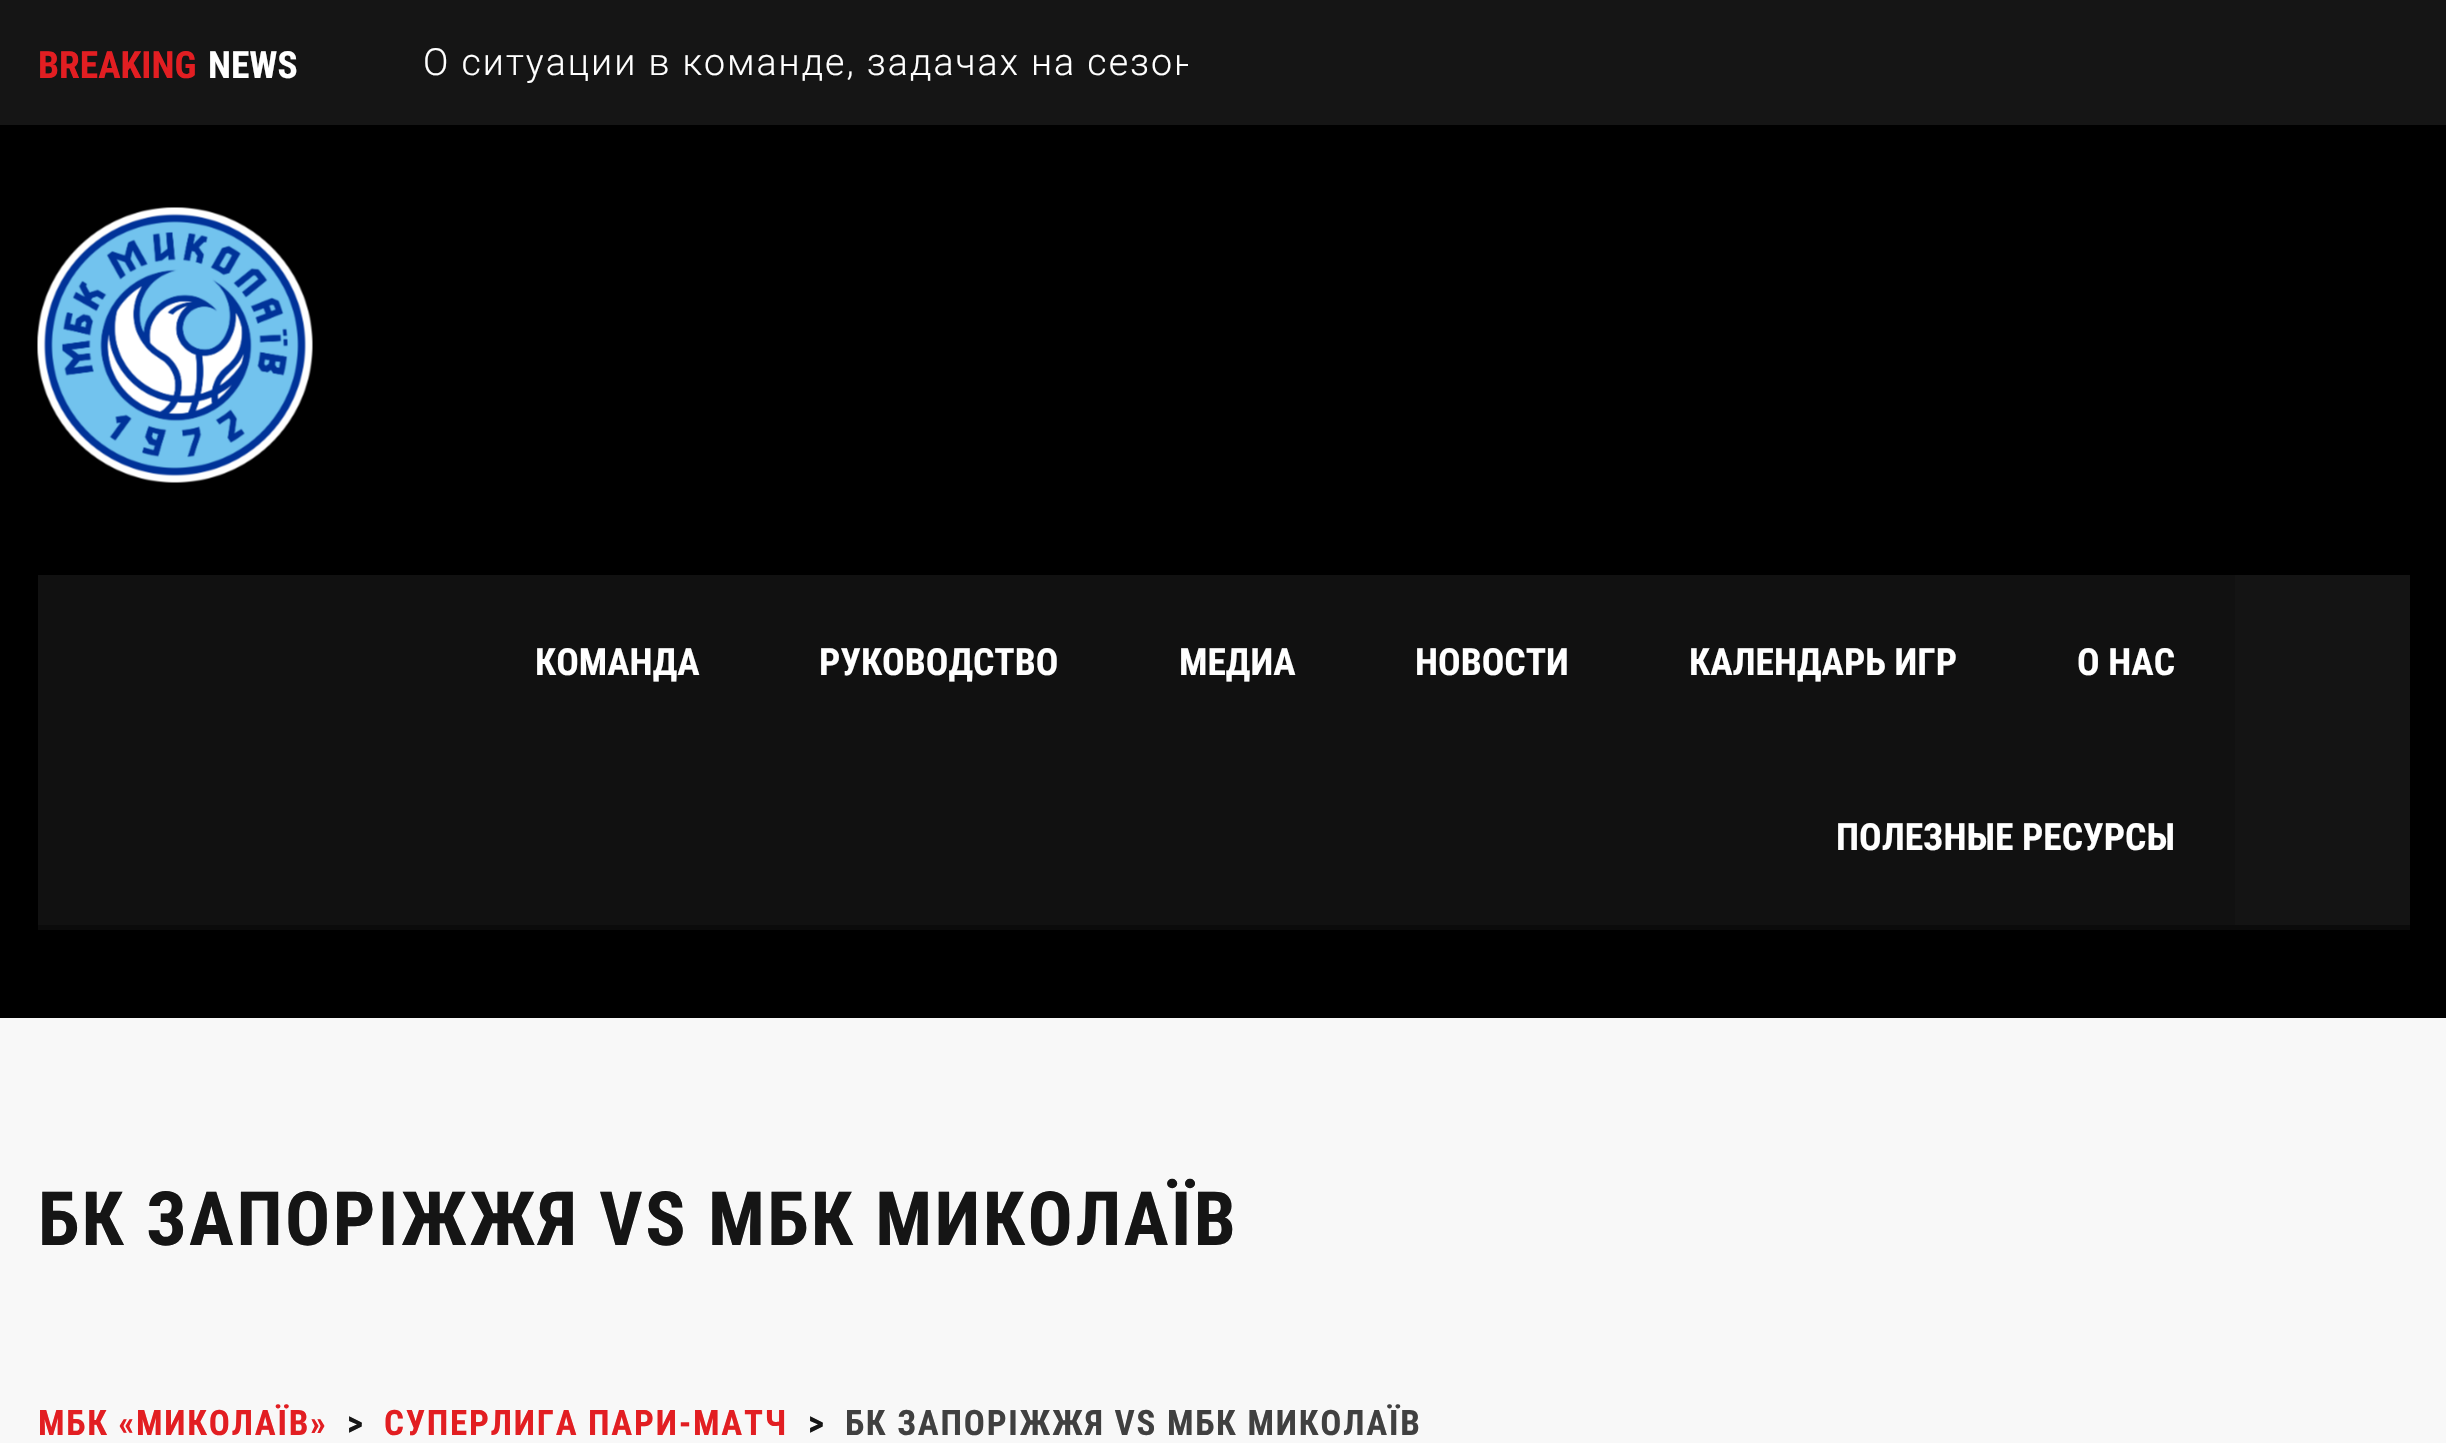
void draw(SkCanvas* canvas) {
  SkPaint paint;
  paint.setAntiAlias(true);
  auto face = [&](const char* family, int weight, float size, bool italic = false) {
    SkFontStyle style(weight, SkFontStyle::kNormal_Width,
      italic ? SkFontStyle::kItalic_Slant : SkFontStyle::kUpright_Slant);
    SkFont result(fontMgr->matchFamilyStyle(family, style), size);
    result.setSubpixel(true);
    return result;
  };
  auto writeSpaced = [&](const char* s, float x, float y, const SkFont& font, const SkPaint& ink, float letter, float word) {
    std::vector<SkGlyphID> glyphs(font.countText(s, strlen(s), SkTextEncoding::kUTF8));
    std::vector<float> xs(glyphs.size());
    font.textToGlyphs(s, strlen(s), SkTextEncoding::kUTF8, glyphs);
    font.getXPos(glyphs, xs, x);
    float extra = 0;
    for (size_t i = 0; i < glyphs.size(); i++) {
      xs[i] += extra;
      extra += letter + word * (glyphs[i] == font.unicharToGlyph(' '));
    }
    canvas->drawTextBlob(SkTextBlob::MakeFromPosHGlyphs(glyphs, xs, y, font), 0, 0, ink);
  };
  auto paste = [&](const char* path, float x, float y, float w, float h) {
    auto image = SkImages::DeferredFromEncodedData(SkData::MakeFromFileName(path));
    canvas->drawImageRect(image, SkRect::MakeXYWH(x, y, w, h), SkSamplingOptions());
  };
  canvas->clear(0xfff8f8f8);
  paint.setColor(0xff151515);
  canvas->drawRect(SkRect::MakeXYWH(0, 0, 2446, 125), paint);
  paint.setColor(0xff000000);
  canvas->drawRect(SkRect::MakeXYWH(0, 125, 2446, 893), paint);
  paste("img/1.png", 37, 207, 276, 276);
  {
    const struct { float x, y, w, h; SkColor color; } items[] = {
      {38, 575, 2197, 350, 0xff111111},
      {2235, 575, 175, 350, 0xff141414},
      {38, 925, 2372, 5, 0xff0b0b0b},
    };
    for (auto [x, y, w, h, color] : items) {
      paint.setColor(color);
      canvas->drawRect(SkRect::MakeXYWH(x, y, w, h), paint);
    }
  }
  auto f0 = face("Roboto Condensed", 700, 37.5f);
  paint.setColor(0xffe21e22);
  canvas->drawString("BREAKING", 38, 78, f0, paint);
  paint.setColor(0xffffffff);
  canvas->drawString("NEWS", 208, 78, f0, paint);
  canvas->save();
  canvas->clipRect(SkRect::MakeXYWH(423, 0, 765, 125));
  auto f1 = face("Roboto", 300, 37.5f);
  writeSpaced("О ситуации в команде, задачах на сезон", 423, 75, f1, paint, 2, 0);
  canvas->restore();
  {
    const struct { const char* s; float x, y; } items[] = {
      {"КОМАНДА", 535, 675},
      {"РУКОВОДСТВО", 819, 675},
      {"МЕДИА", 1179, 675},
      {"НОВОСТИ", 1415, 675},
      {"КАЛЕНДАРЬ ИГР", 1689, 675},
      {"О НАС", 2077, 675},
      {"ПОЛЕЗНЫЕ РЕСУРСЫ", 1836, 850},
    };
    for (auto [s, x, y] : items) {
      canvas->drawString(s, x, y, f0, paint);
    }
  }
  auto f2 = face("Roboto Condensed", 700, 75);
  paint.setColor(0xff151515);
  writeSpaced("БК ЗАПОРІЖЖЯ VS МБК МИКОЛАЇВ", 38, 1245, f2, paint, 2.5f, 0);
  auto f3 = face("Roboto Condensed", 700, 35);
  paint.setColor(0xffe21e22);
  writeSpaced("МБК «МИКОЛАЇВ»", 38, 1435, f3, paint, 1.75f, 0);
  paint.setColor(0xff151515);
  writeSpaced(">", 347, 1435, f3, paint, 1.75f, 0);
  paint.setColor(0xffe21e22);
  writeSpaced("СУПЕРЛИГА ПАРИ-МАТЧ", 384, 1435, f3, paint, 1.75f, 0);
  paint.setColor(0xff151515);
  writeSpaced(">", 808, 1435, f3, paint, 1.75f, 0);
  paint.setColor(0xff404040);
  writeSpaced("БК ЗАПОРІЖЖЯ VS МБК МИКОЛАЇВ", 845, 1435, f3, paint, 1.75f, 0);
}
